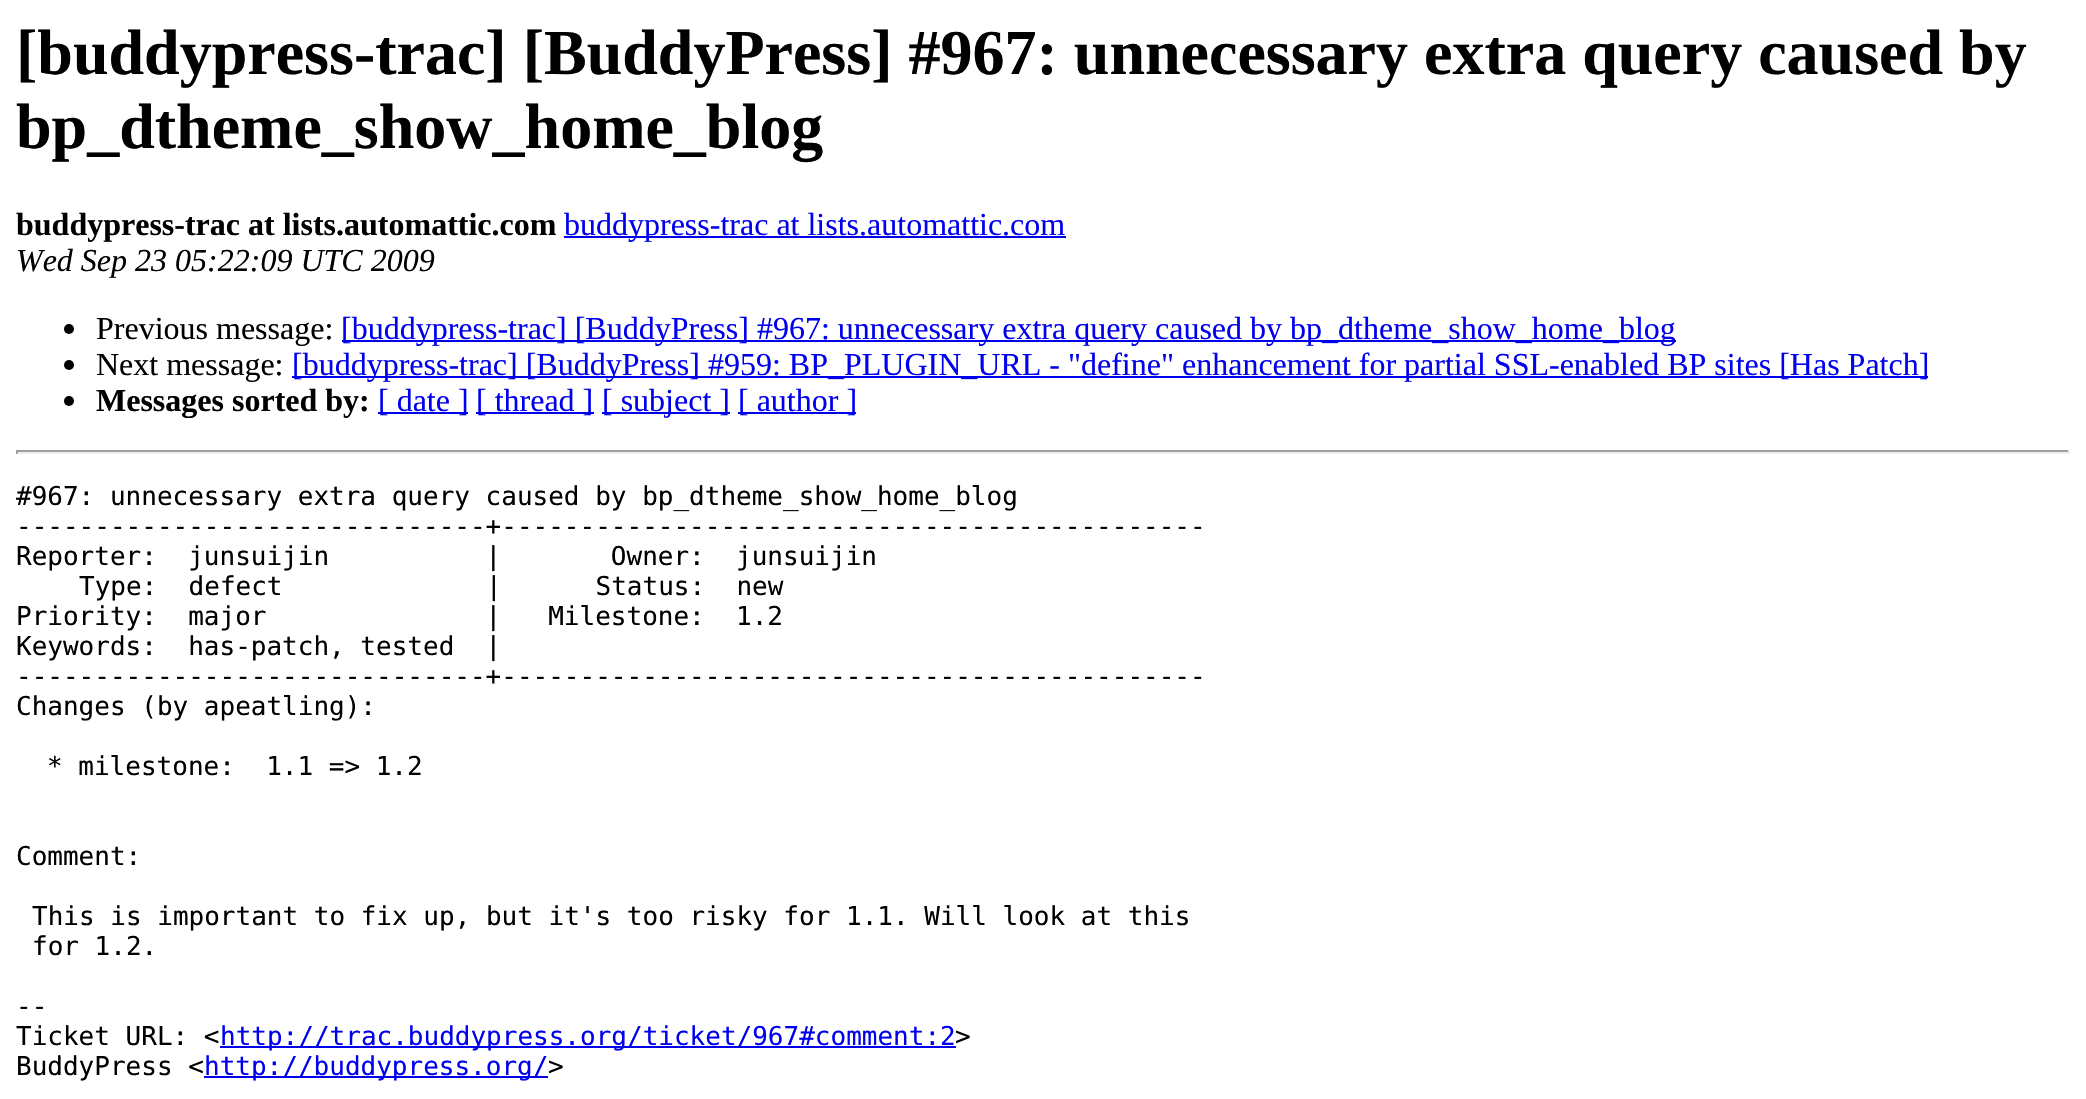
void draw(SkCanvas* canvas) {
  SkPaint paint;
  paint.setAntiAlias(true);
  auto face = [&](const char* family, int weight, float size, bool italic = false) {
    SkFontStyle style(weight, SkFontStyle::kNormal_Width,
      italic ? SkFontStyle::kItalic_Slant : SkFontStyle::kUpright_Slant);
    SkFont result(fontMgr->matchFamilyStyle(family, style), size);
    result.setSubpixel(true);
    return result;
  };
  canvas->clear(0xffffffff);
  paint.setColor(0xff0000ee);
  canvas->drawRect(SkRect::MakeXYWH(564, 236, 502, 2), paint);
  paint.setColor(0xff000000);
  canvas->drawCircle(69, 329, 5, paint);
  paint.setColor(0xff0000ee);
  canvas->drawRect(SkRect::MakeXYWH(342, 340, 1334, 2), paint);
  paint.setColor(0xff000000);
  canvas->drawCircle(69, 365, 5, paint);
  paint.setColor(0xff0000ee);
  canvas->drawRect(SkRect::MakeXYWH(292, 376, 1636, 2), paint);
  paint.setColor(0xff000000);
  canvas->drawCircle(69, 401, 5, paint);
  {
    const struct { float x, y, w, h; SkColor color; } items[] = {
      {378, 412, 90, 2, 0xff0000ee},
      {476, 412, 118, 2, 0xff0000ee},
      {602, 412, 128, 2, 0xff0000ee},
      {738, 412, 118, 2, 0xff0000ee},
      {16, 450, 2054, 2, 0xff9f9f9f},
      {2068, 450, 2, 4, 0xffeeeeee},
      {16, 452, 2054, 2, 0xffeeeeee},
      {16, 450, 2, 4, 0xff9f9f9f},
      {220, 1046, 736, 2, 0xff0000ee},
      {204, 1076, 344, 2, 0xff0000ee},
    };
    for (auto [x, y, w, h, color] : items) {
      paint.setColor(color);
      canvas->drawRect(SkRect::MakeXYWH(x, y, w, h), paint);
    }
  }
  auto f0 = face("Liberation Serif", 700, 64);
  paint.setColor(0xff000000);
  canvas->drawString("[buddypress-trac] [BuddyPress] #967: unnecessary extra query caused by", 16, 74, f0, paint);
  canvas->drawString("bp_dtheme_show_home_blog", 16, 148, f0, paint);
  auto f1 = face("Liberation Serif", 700, 32);
  canvas->drawString("buddypress-trac at lists.automattic.com", 16, 235, f1, paint);
  auto f2 = face("Liberation Serif", 400, 32);
  paint.setColor(0xff0000ee);
  canvas->drawString("buddypress-trac at lists.automattic.com", 564, 235, f2, paint);
  auto f3 = face("Liberation Serif", 400, 32, true);
  paint.setColor(0xff000000);
  canvas->drawString("Wed Sep 23 05:22:09 UTC 2009", 16, 271, f3, paint);
  canvas->drawString("Previous message:", 96, 339, f2, paint);
  paint.setColor(0xff0000ee);
  canvas->drawString("[buddypress-trac] [BuddyPress] #967: unnecessary extra query caused by bp_dtheme_show_home_blog", 341, 339, f2, paint);
  paint.setColor(0xff000000);
  canvas->drawString("Next message:", 96, 375, f2, paint);
  paint.setColor(0xff0000ee);
  canvas->drawString("[buddypress-trac] [BuddyPress] #959: BP_PLUGIN_URL - \"define\" enhancement for partial SSL-enabled BP sites [Has Patch]", 292, 375, f2, paint);
  paint.setColor(0xff000000);
  canvas->drawString("Messages sorted by:", 96, 411, f1, paint);
  paint.setColor(0xff0000ee);
  {
    const struct { const char* s; float x, y; } items[] = {
      {"[ date ]", 378, 411},
      {"[ thread ]", 476, 411},
      {"[ subject ]", 602, 411},
      {"[ author ]", 738, 411},
    };
    for (auto [s, x, y] : items) {
      canvas->drawString(s, x, y, f2, paint);
    }
  }
  auto f4 = face("DejaVu Sans Mono", 400, 26);
  paint.setColor(0xff000000);
  {
    const struct { const char* s; float x, y; } items[] = {
      {"#967: unnecessary extra query caused by bp_dtheme_show_home_blog", 16, 505},
      {"------------------------------+---------------------------------------------", 16, 535},
      {"Reporter:  junsuijin          |       Owner:  junsuijin", 16, 565},
      {"Type:  defect             |      Status:  new", 79, 595},
      {"Priority:  major              |   Milestone:  1.2", 16, 625},
      {"Keywords:  has-patch, tested  |", 16, 655},
      {"------------------------------+---------------------------------------------", 16, 685},
      {"Changes (by apeatling):", 16, 715},
      {"* milestone:  1.1 => 1.2", 47, 775},
      {"Comment:", 16, 865},
      {"This is important to fix up, but it's too risky for 1.1. Will look at this", 32, 925},
      {"for 1.2.", 32, 955},
      {"--", 16, 1015},
      {"Ticket URL: <", 16, 1045},
    };
    for (auto [s, x, y] : items) {
      canvas->drawString(s, x, y, f4, paint);
    }
  }
  paint.setColor(0xff0000ee);
  canvas->drawString("http://trac.buddypress.org/ticket/967#comment:2", 220, 1045, f4, paint);
  paint.setColor(0xff000000);
  canvas->drawString(">", 955, 1045, f4, paint);
  canvas->drawString("BuddyPress <", 16, 1075, f4, paint);
  paint.setColor(0xff0000ee);
  canvas->drawString("http://buddypress.org/", 204, 1075, f4, paint);
  paint.setColor(0xff000000);
  canvas->drawString(">", 548, 1075, f4, paint);
}
